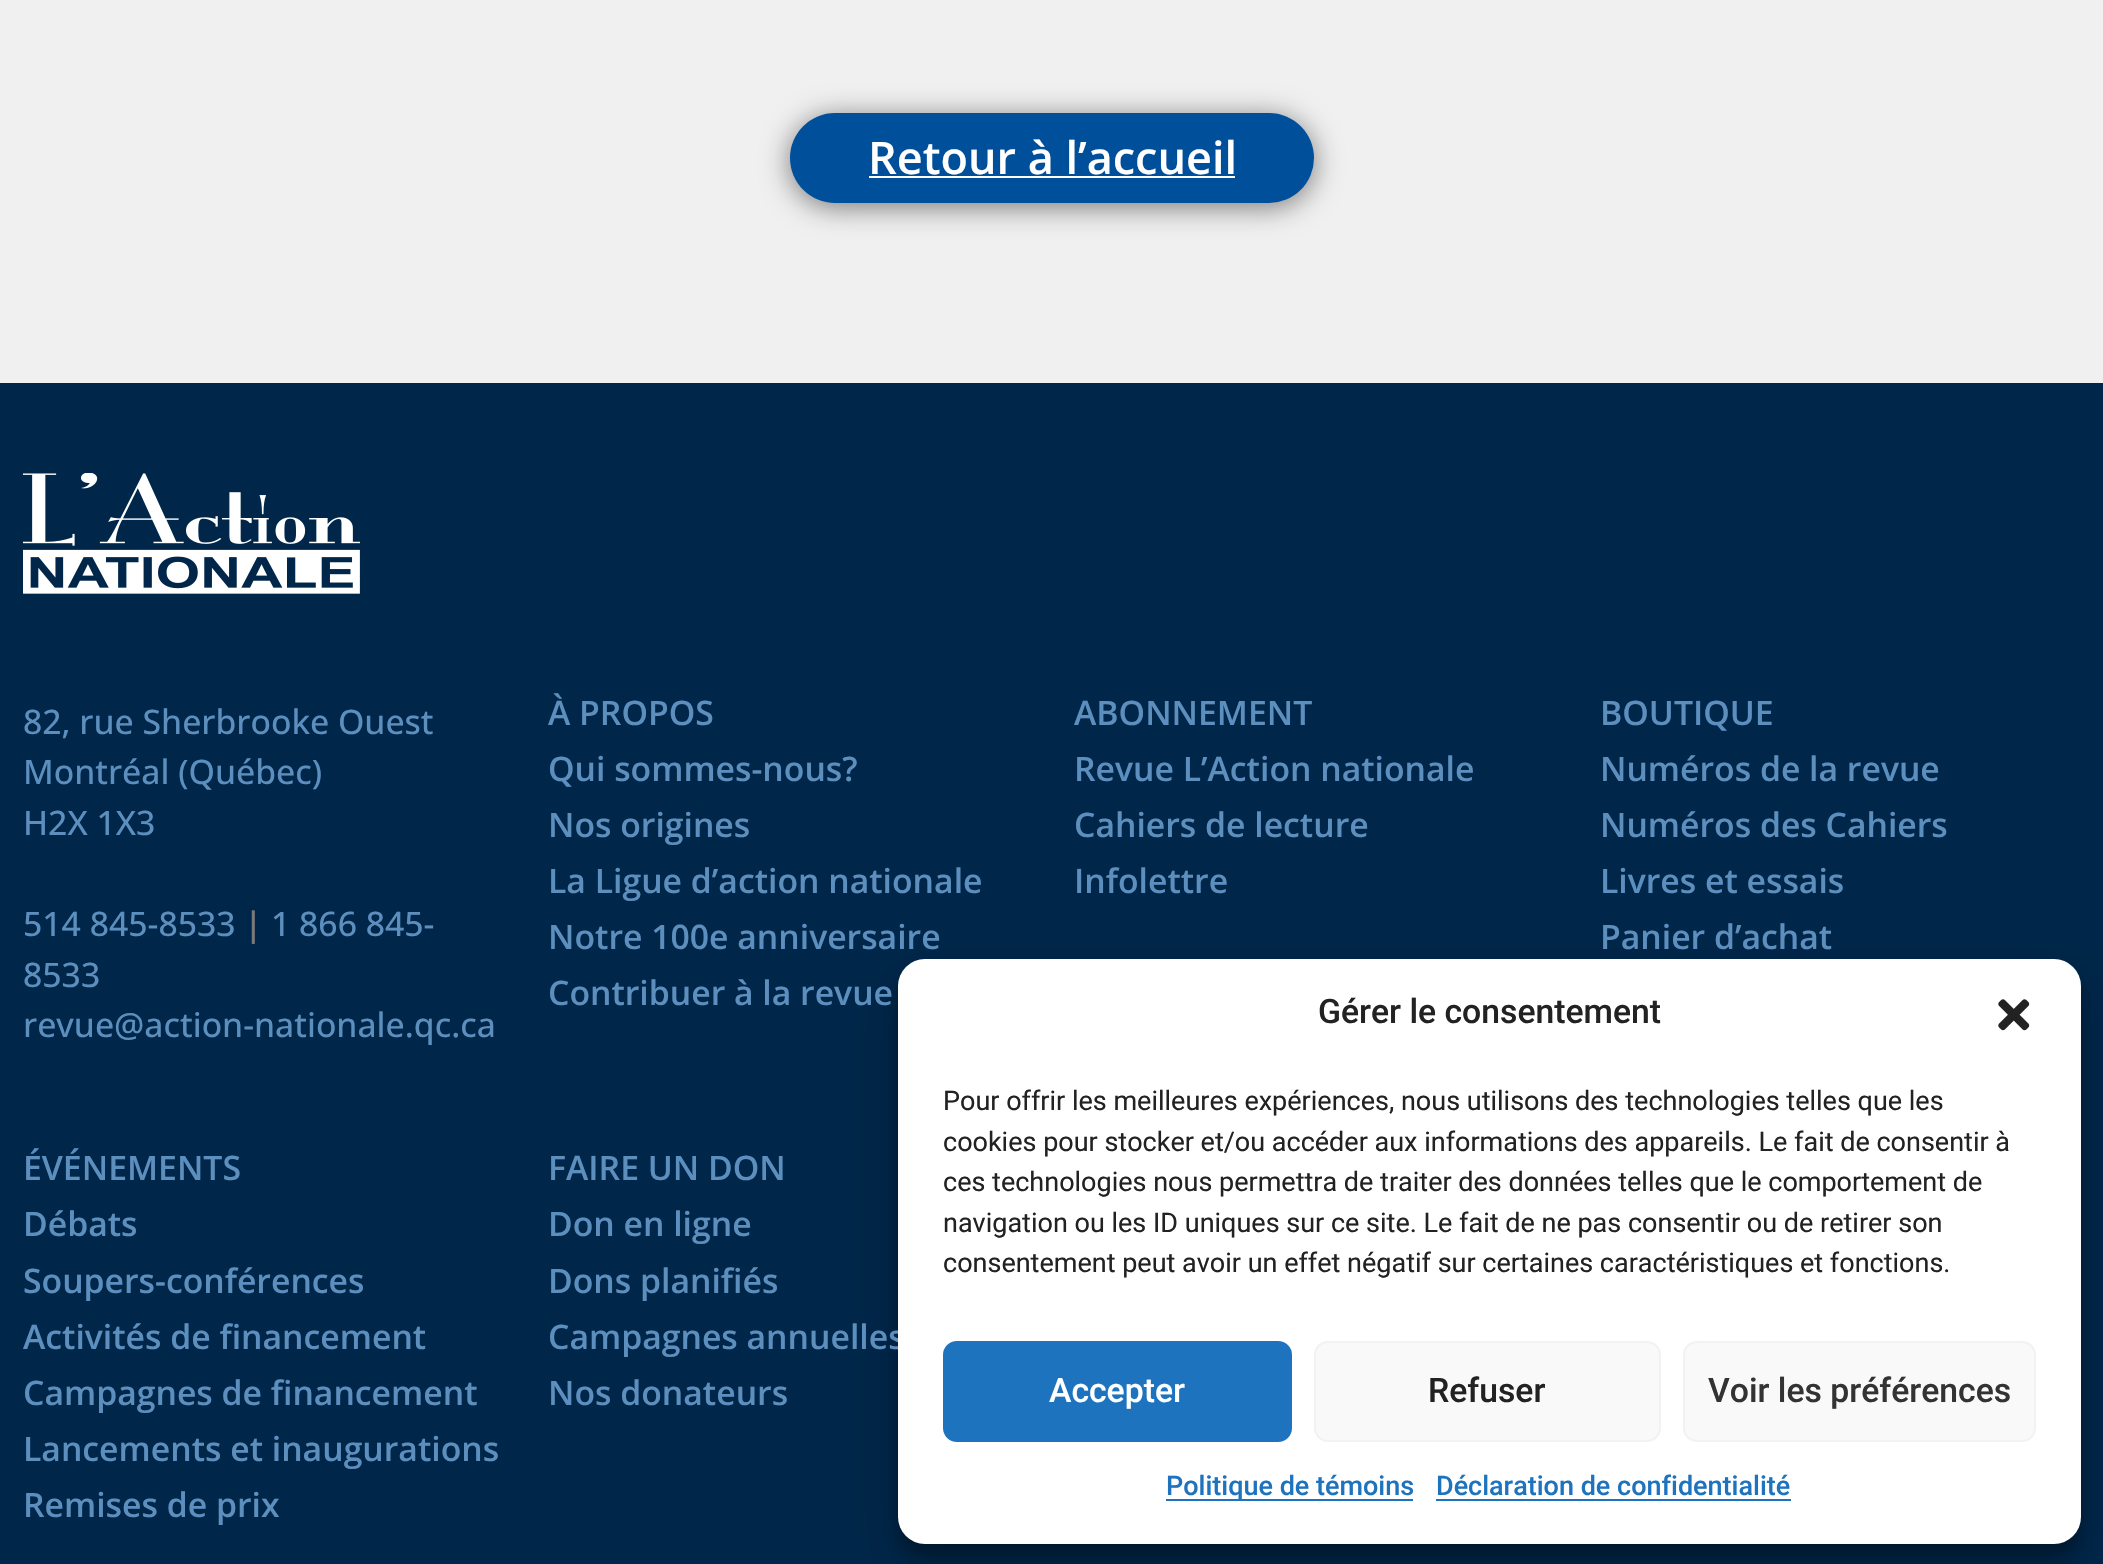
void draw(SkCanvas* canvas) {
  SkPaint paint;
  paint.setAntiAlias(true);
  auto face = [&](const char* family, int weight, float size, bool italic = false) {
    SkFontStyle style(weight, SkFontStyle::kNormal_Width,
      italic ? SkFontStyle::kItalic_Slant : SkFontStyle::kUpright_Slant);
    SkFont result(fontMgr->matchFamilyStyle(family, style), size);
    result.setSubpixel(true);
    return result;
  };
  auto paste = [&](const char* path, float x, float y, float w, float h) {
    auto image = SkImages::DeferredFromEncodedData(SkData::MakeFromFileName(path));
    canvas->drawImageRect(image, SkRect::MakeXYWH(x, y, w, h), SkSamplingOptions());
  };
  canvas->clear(0xfff0f0f0);
  paint.setColor(0x80000000);
  paint.setMaskFilter(SkMaskFilter::MakeBlur(kNormal_SkBlurStyle, 14.5f));
  canvas->drawRoundRect(SkRect::MakeXYWH(790, 117, 524, 90), 45, 45, paint);
  paint.setMaskFilter(nullptr);
  paint.setColor(0xff004f9a);
  canvas->drawRoundRect(SkRect::MakeXYWH(790, 113, 524, 90), 45, 45, paint);
  paint.setColor(0xffffffff);
  canvas->drawRect(SkRect::MakeXYWH(869, 176, 366, 2), paint);
  paint.setColor(0xff002649);
  canvas->drawRect(SkRect::MakeXYWH(0, 383, 2103, 1181), paint);
  paste("img/1.png", 23, 473, 337, 121);
  paint.setColor(0x3b000000);
  paint.setMaskFilter(SkMaskFilter::MakeBlur(kNormal_SkBlurStyle, 7));
  canvas->drawRoundRect(SkRect::MakeXYWH(898, 972, 1183, 585), 27, 27, paint);
  paint.setMaskFilter(nullptr);
  paint.setColor(0x30000000);
  paint.setMaskFilter(SkMaskFilter::MakeBlur(kNormal_SkBlurStyle, 22.5f));
  canvas->drawRoundRect(SkRect::MakeXYWH(898, 981, 1183, 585), 27, 27, paint);
  paint.setMaskFilter(nullptr);
  auto f0 = face("Open Sans", 600, 45);
  paint.setColor(0xffffffff);
  canvas->drawString("Retour à l’accueil", 868, 174, f0, paint);
  auto f1 = face("Open Sans", 500, 33.75f);
  paint.setColor(0xff5c8ebe);
  {
    const struct { const char* s; float x, y; } items[] = {
      {"82, rue Sherbrooke Ouest", 23, 734},
      {"Montréal (Québec)", 23, 784},
      {"H2X 1X3", 23, 835},
      {"514 845-8533", 23, 936},
    };
    for (auto [s, x, y] : items) {
      canvas->drawString(s, x, y, f1, paint);
    }
  }
  auto f2 = face("Open Sans", 600, 33.75f);
  paint.setColor(0xff7a7a7a);
  canvas->drawString("|", 244, 936, f2, paint);
  paint.setColor(0xff5c8ebe);
  {
    const struct { const char* s; float x, y; } items[] = {
      {"1 866 845-", 271, 936},
      {"8533", 23, 987},
      {"revue@action-nationale.qc.ca", 23, 1037},
    };
    for (auto [s, x, y] : items) {
      canvas->drawString(s, x, y, f1, paint);
    }
  }
  {
    const struct { const char* s; float x, y; } items[] = {
      {"À PROPOS", 548, 725},
      {"Qui sommes-nous?", 548, 781},
      {"Nos origines", 548, 837},
      {"La Ligue d’action nationale", 548, 893},
      {"Notre 100e anniversaire", 548, 949},
      {"Contribuer à la revue", 548, 1005},
      {"ABONNEMENT", 1074, 725},
      {"Revue L’Action nationale", 1074, 781},
      {"Cahiers de lecture", 1074, 837},
      {"Infolettre", 1074, 893},
      {"BOUTIQUE", 1600, 725},
      {"Numéros de la revue", 1600, 781},
      {"Numéros des Cahiers", 1600, 837},
      {"Livres et essais", 1600, 893},
      {"Panier d’achat", 1600, 949},
      {"ÉVÉNEMENTS", 23, 1180},
      {"Débats", 23, 1236},
      {"Soupers-conférences", 23, 1293},
      {"Activités de financement", 23, 1349},
      {"Campagnes de financement", 23, 1405},
      {"Lancements et inaugurations", 23, 1461},
      {"Remises de prix", 23, 1517},
      {"FAIRE UN DON", 548, 1180},
      {"Don en ligne", 548, 1236},
      {"Dons planifiés", 548, 1293},
      {"Campagnes annuelles", 548, 1349},
      {"Nos donateurs", 548, 1405},
    };
    for (auto [s, x, y] : items) {
      canvas->drawString(s, x, y, f2, paint);
    }
  }
  paint.setColor(0xffffffff);
  canvas->drawRoundRect(SkRect::MakeXYWH(898, 959, 1183, 585), 27, 27, paint);
  auto f3 = face("Roboto", 500, 33.75f);
  paint.setColor(0xff222222);
  canvas->drawString("Gérer le consentement", 1318, 1023, f3, paint);
  paste("img/2.png", 1998, 999, 32, 32);
  auto f4 = face("Roboto", 400, 27);
  {
    const struct { const char* s; float x, y; } items[] = {
      {"Pour offrir les meilleures expériences, nous utilisons des technologies telles que les", 943, 1110},
      {"cookies pour stocker et/ou accéder aux informations des appareils. Le fait de consentir à", 943, 1151},
      {"ces technologies nous permettra de traiter des données telles que le comportement de", 943, 1191},
      {"navigation ou les ID uniques sur ce site. Le fait de ne pas consentir ou de retirer son", 943, 1232},
      {"consentement peut avoir un effet négatif sur certaines caractéristiques et fonctions.", 943, 1272},
    };
    for (auto [s, x, y] : items) {
      canvas->drawString(s, x, y, f4, paint);
    }
  }
  paint.setColor(0xff1e73be);
  canvas->drawRoundRect(SkRect::MakeXYWH(944, 1342, 347, 99), 13, 13, paint);
  paint.setStroke(true);
  paint.setStrokeWidth(2);
  canvas->drawRoundRect(SkRect::MakeXYWH(944, 1342, 347, 99), 13, 13, paint);
  paint.setStroke(false);
  paint.setColor(0xffffffff);
  canvas->drawString("Accepter", 1049, 1402, f3, paint);
  paint.setColor(0xfff9f9f9);
  canvas->drawRoundRect(SkRect::MakeXYWH(1315, 1342, 345, 99), 13, 13, paint);
  paint.setStroke(true);
  paint.setColor(0xfff2f2f2);
  canvas->drawRoundRect(SkRect::MakeXYWH(1315, 1342, 345, 99), 13, 13, paint);
  paint.setStroke(false);
  paint.setColor(0xff222222);
  canvas->drawString("Refuser", 1428, 1402, f3, paint);
  paint.setColor(0xfff9f9f9);
  canvas->drawRoundRect(SkRect::MakeXYWH(1684, 1342, 351, 99), 13, 13, paint);
  paint.setStroke(true);
  paint.setColor(0xfff2f2f2);
  canvas->drawRoundRect(SkRect::MakeXYWH(1684, 1342, 351, 99), 13, 13, paint);
  paint.setStroke(false);
  paint.setColor(0xff333333);
  canvas->drawString("Voir les préférences", 1708, 1402, f3, paint);
  paint.setColor(0xff1e73be);
  canvas->drawRect(SkRect::MakeXYWH(1166, 1499, 247, 2), paint);
  auto f5 = face("Roboto", 500, 27);
  canvas->drawString("Politique de témoins", 1166, 1495, f5, paint);
  canvas->drawString("Déclaration de confidentialité", 1436, 1495, f5, paint);
  canvas->drawRect(SkRect::MakeXYWH(1436, 1499, 355, 2), paint);
}
